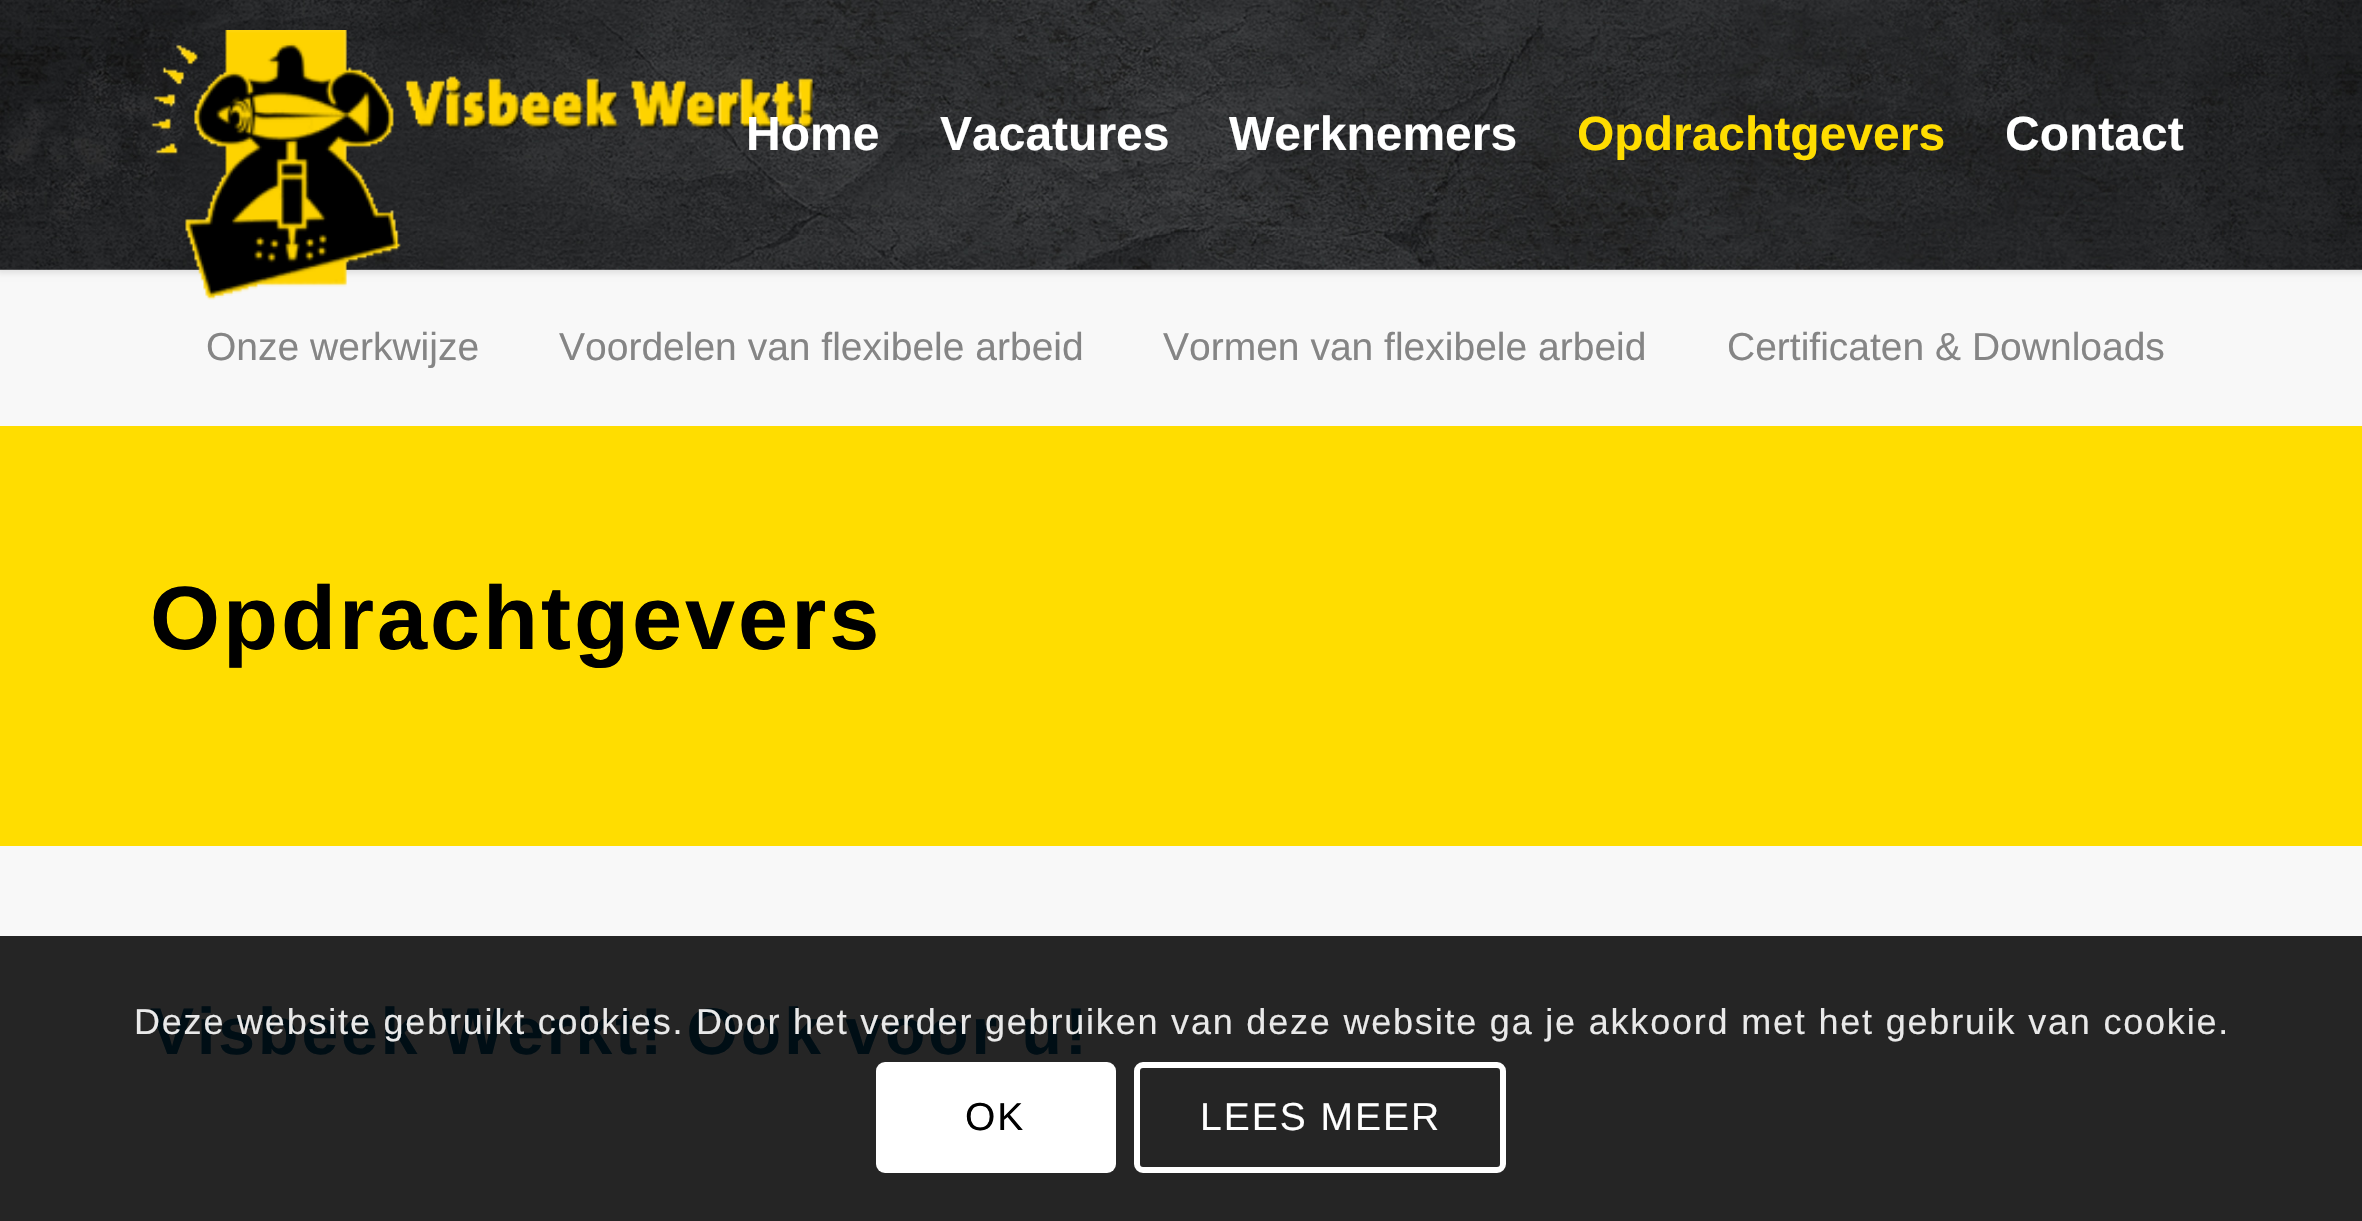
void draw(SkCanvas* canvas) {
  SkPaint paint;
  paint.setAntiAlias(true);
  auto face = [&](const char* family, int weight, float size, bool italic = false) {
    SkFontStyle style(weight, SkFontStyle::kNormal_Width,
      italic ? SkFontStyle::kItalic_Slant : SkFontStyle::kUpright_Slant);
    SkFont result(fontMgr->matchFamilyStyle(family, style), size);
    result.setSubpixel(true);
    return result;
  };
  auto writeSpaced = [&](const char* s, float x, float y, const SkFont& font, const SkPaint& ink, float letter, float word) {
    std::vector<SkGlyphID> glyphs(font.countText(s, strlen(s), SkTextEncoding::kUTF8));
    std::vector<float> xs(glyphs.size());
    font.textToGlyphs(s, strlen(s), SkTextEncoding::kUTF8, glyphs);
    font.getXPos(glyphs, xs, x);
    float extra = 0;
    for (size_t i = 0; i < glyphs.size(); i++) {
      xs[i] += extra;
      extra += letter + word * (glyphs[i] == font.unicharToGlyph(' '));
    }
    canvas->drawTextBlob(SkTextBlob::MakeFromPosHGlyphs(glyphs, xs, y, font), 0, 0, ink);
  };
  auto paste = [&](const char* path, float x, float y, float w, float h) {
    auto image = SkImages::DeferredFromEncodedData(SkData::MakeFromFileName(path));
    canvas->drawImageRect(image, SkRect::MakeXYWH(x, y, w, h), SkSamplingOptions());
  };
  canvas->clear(0xffffffff);
  paint.setColor(0xfff8f8f8);
  canvas->drawRect(SkRect::MakeXYWH(0, 270, 2362, 156), paint);
  paint.setColor(0x1a000000);
  paint.setMaskFilter(SkMaskFilter::MakeBlur(kNormal_SkBlurStyle, 3));
  canvas->drawRect(SkRect::MakeXYWH(-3, -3, 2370, 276), paint);
  paint.setMaskFilter(nullptr);
  paste("img/1.png", 0, 0, 2362, 270);
  paste("img/2.png", 151, 30, 665, 270);
  {
    const struct { float x, y, w, h; SkColor color; } items[] = {
      {0, 426, 2362, 420, 0xffffdd00},
      {0, 846, 2362, 90, 0xfff8f8f8},
      {0, 936, 2362, 285, 0xff252525},
    };
    for (auto [x, y, w, h, color] : items) {
      paint.setColor(color);
      canvas->drawRect(SkRect::MakeXYWH(x, y, w, h), paint);
    }
  }
  paint.setColor(0xffffffff);
  canvas->drawRoundRect(SkRect::MakeXYWH(876, 1062, 240, 111), 9, 9, paint);
  paint.setStroke(true);
  paint.setStrokeWidth(6);
  canvas->drawRoundRect(SkRect::MakeXYWH(1137, 1065, 366, 105), 6, 6, paint);
  auto f0 = face("Liberation Sans", 700, 48);
  paint.setStroke(false);
  {
    const struct { const char* s; float x, y; } items[] = {
      {"Home", 746, 150},
      {"Vacatures", 940, 150},
      {"Werknemers", 1229, 150},
    };
    for (auto [s, x, y] : items) {
      canvas->drawString(s, x, y, f0, paint);
    }
  }
  paint.setColor(0xffffdd00);
  canvas->drawString("Opdrachtgevers", 1577, 150, f0, paint);
  paint.setColor(0xffffffff);
  canvas->drawString("Contact", 2005, 150, f0, paint);
  auto f1 = face("Liberation Sans", 400, 39);
  paint.setColor(0xff858585);
  {
    const struct { const char* s; float x, y; } items[] = {
      {"Onze werkwijze", 206, 360},
      {"Voordelen van flexibele arbeid", 559, 360},
      {"Vormen van flexibele arbeid", 1163, 360},
      {"Certificaten & Downloads", 1727, 360},
    };
    for (auto [s, x, y] : items) {
      canvas->drawString(s, x, y, f1, paint);
    }
  }
  auto f2 = face("Liberation Sans", 700, 90);
  paint.setColor(0xff000000);
  writeSpaced("Opdrachtgevers", 150, 649, f2, paint, 3, 0);
  auto f3 = face("Liberation Sans", 700, 66);
  paint.setColor(0xff000e15);
  writeSpaced("Visbeek Werkt! Ook voor u!", 150, 1054, f3, paint, 3, 0);
  auto f4 = face("Liberation Sans", 400, 36);
  paint.setColor(0xffe9e9e9);
  writeSpaced("Deze website gebruikt cookies. Door het verder gebruiken van deze website ga je akkoord met het gebruik van cookie.", 134, 1034, f4, paint, 1.8f, 0);
  paint.setColor(0xff000000);
  writeSpaced("OK", 965, 1130, f1, paint, 2, 0);
  paint.setColor(0xffffffff);
  writeSpaced("LEES MEER", 1200, 1130, f1, paint, 2, 0);
}
